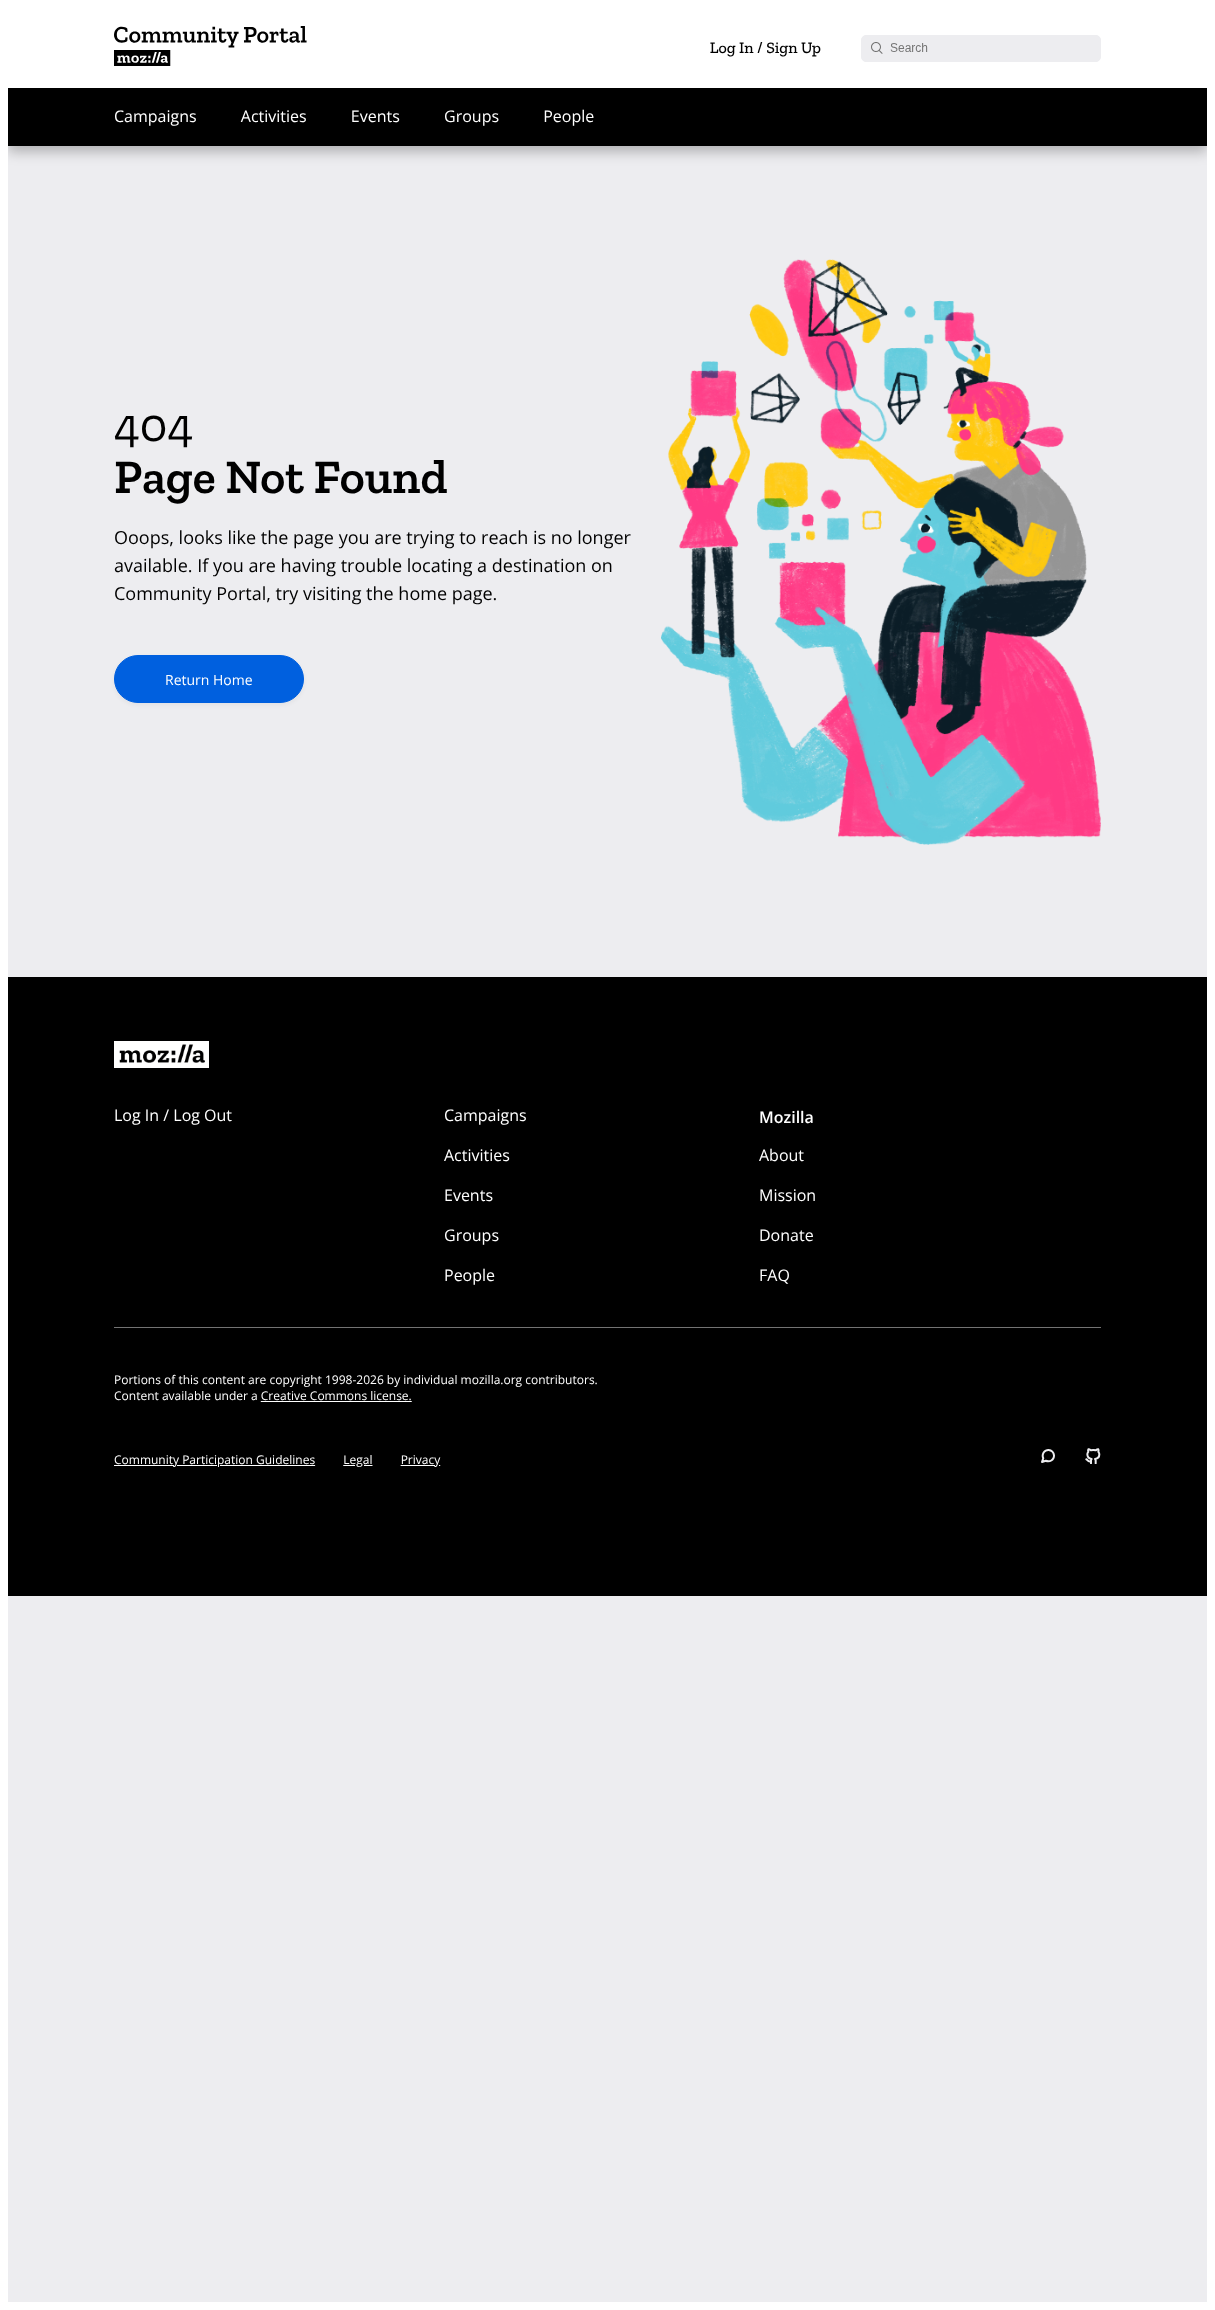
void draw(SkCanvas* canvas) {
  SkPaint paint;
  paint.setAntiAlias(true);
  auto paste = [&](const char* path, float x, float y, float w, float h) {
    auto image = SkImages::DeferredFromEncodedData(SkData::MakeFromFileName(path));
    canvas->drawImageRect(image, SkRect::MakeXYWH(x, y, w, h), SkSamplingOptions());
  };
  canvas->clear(0xffffffff);
  paste("img/1.png", 8, 26, 1199, 2276);
}
